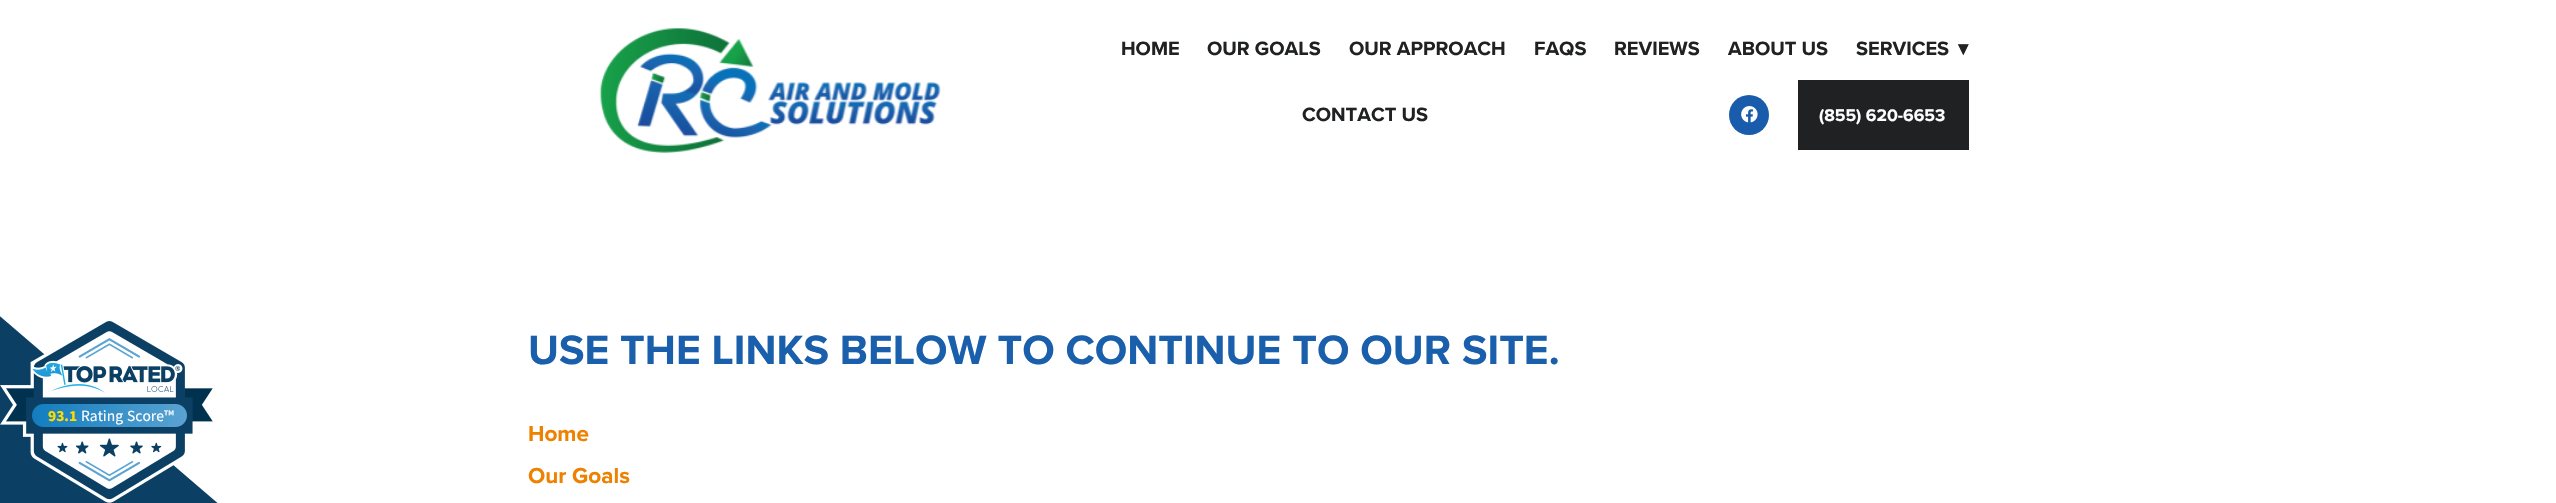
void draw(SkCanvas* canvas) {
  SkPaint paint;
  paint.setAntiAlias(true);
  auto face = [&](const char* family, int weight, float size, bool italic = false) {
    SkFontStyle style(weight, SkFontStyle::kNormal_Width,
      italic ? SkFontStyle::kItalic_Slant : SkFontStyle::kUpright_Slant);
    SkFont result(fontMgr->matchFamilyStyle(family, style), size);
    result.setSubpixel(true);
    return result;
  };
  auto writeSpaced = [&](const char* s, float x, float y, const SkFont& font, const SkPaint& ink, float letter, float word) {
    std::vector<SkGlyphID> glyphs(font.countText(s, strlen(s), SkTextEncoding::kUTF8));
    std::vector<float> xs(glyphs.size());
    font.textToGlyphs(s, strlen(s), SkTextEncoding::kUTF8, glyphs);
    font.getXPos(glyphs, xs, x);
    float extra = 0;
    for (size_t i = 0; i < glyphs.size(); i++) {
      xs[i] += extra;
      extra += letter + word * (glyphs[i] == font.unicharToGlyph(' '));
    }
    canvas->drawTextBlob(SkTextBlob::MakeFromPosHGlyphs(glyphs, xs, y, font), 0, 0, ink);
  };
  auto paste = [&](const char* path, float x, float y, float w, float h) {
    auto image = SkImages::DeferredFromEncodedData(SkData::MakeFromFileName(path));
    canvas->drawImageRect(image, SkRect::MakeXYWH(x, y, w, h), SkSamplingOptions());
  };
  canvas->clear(0xffffffff);
  paste("img/1.png", 0, 316, 218, 187);
  paste("img/2.png", 599, 28, 342, 126);
  paint.setColor(0xff195cab);
  canvas->drawCircle(1749, 115, 20, paint);
  paste("img/3.png", 1741, 106, 17, 17);
  paint.setColor(0xff1f2122);
  canvas->drawRect(SkRect::MakeXYWH(1798, 80, 171, 70), paint);
  auto f0 = face("Source Sans Pro", 700, 15.5f);
  paint.setColor(0xffffdd00);
  canvas->drawString("93.1", 48, 421, f0, paint);
  auto f1 = face("Source Sans Pro", 400, 15.5f);
  paint.setColor(0xffffffff);
  writeSpaced("Rating Score™", 81, 421, f1, paint, 0, 1);
  auto f2 = face("Proxima Nova", 700, 20);
  paint.setColor(0xff1f2122);
  {
    const struct { const char* s; float x, y; } items[] = {
      {"HOME", 1121, 55},
      {"OUR GOALS", 1207, 55},
      {"OUR APPROACH", 1349, 55},
      {"FAQS", 1534, 55},
      {"REVIEWS", 1614, 55},
      {"ABOUT US", 1728, 55},
      {"SERVICES", 1856, 55},
    };
    for (auto [s, x, y] : items) {
      canvas->drawString(s, x, y, f2, paint);
    }
  }
  auto f3 = face("DejaVu Sans", 700, 20);
  canvas->drawString("▾", 1958, 55, f3, paint);
  canvas->drawString("CONTACT US", 1302, 121, f2, paint);
  auto f4 = face("Proxima Nova", 700, 17.5f);
  paint.setColor(0xffffffff);
  canvas->drawString("(855) 620-6653", 1819, 121, f4, paint);
  auto f5 = face("Proxima Nova", 700, 42.5f);
  paint.setColor(0xff195fab);
  canvas->drawString("USE THE LINKS BELOW TO CONTINUE TO OUR SITE.", 528, 364, f5, paint);
  auto f6 = face("Proxima Nova", 700, 22.5f);
  paint.setColor(0xffee8100);
  canvas->drawString("Home", 528, 441, f6, paint);
  canvas->drawString("Our Goals", 528, 483, f6, paint);
}
